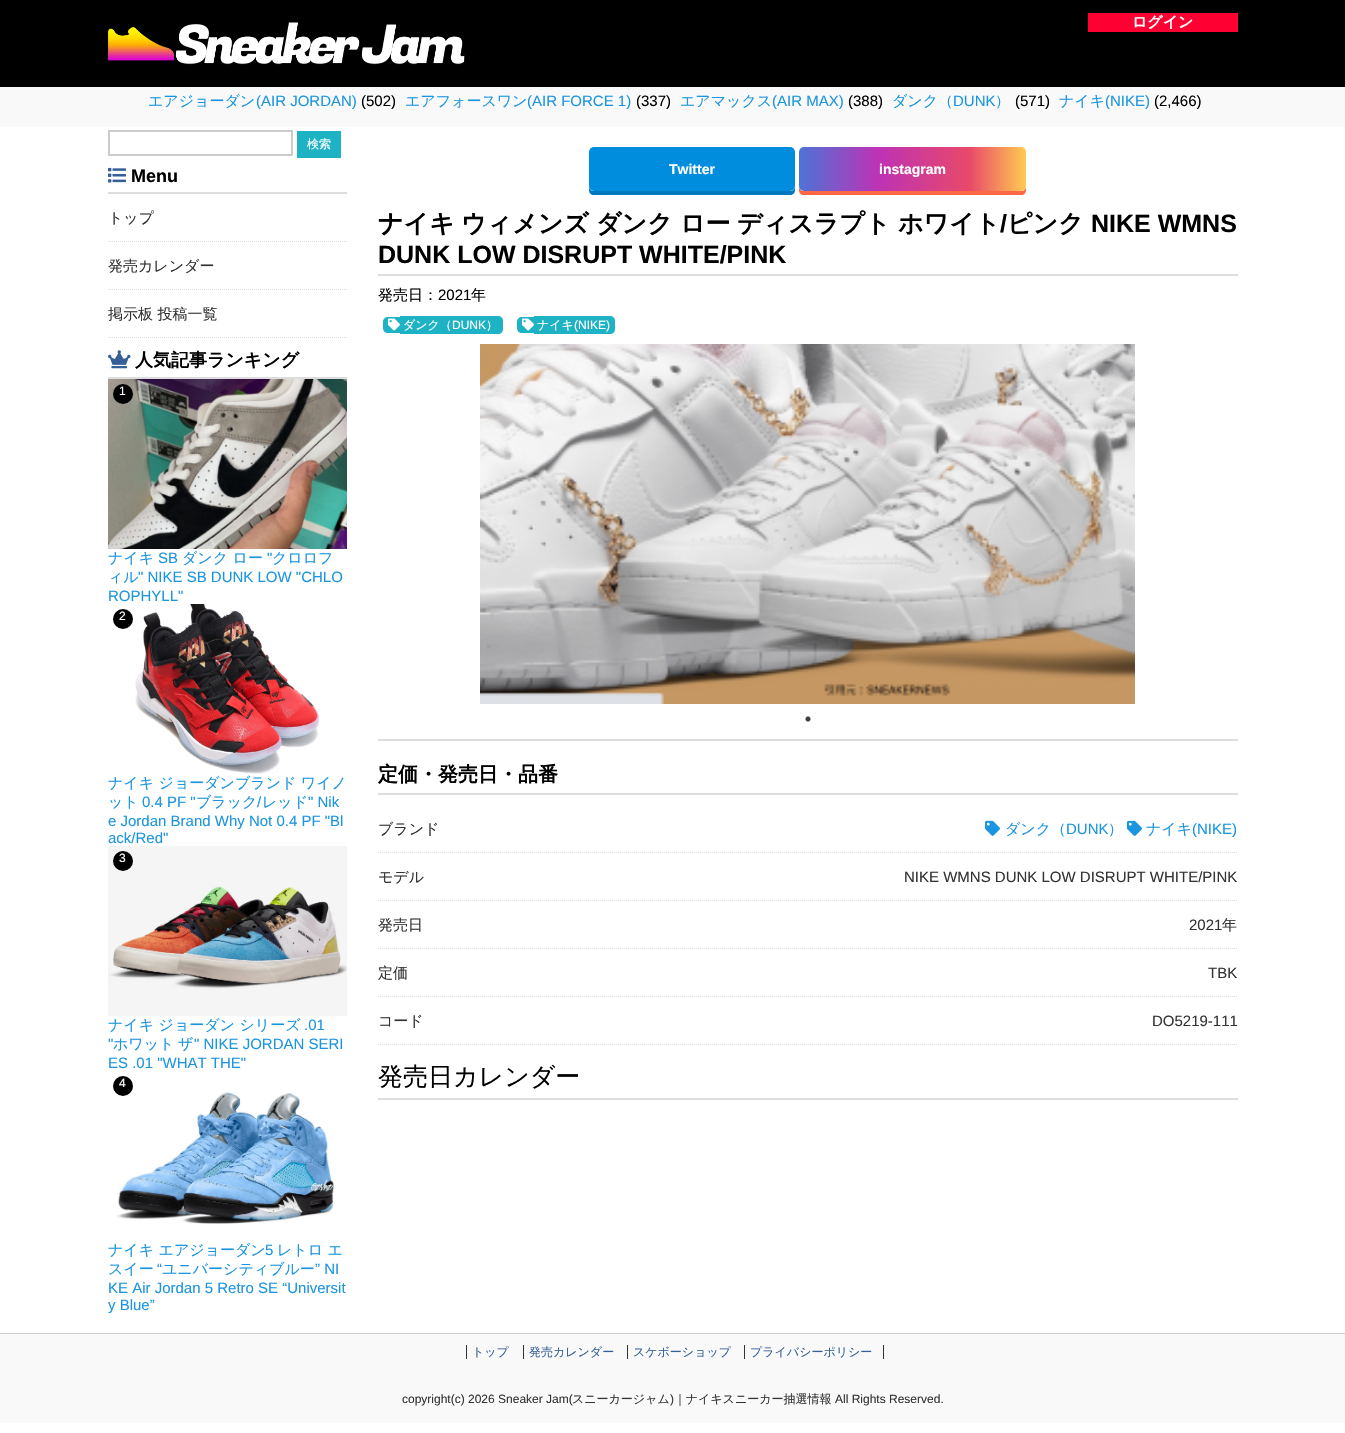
void draw(SkCanvas* canvas) {
  SkPaint paint;
  paint.setAntiAlias(true);
  auto face = [&](const char* family, int weight, float size, bool italic = false) {
    SkFontStyle style(weight, SkFontStyle::kNormal_Width,
      italic ? SkFontStyle::kItalic_Slant : SkFontStyle::kUpright_Slant);
    SkFont result(fontMgr->matchFamilyStyle(family, style), size);
    result.setSubpixel(true);
    return result;
  };
  auto paste = [&](const char* path, float x, float y, float w, float h) {
    auto image = SkImages::DeferredFromEncodedData(SkData::MakeFromFileName(path));
    canvas->drawImageRect(image, SkRect::MakeXYWH(x, y, w, h), SkSamplingOptions());
  };
  auto shape = [&](const char* data, bool evenOdd = false) {
    SkPath result = *SkParsePath::FromSVGString(data);
    if (evenOdd) result.setFillType(SkPathFillType::kEvenOdd);
    return result;
  };
  canvas->clear(0xffffffff);
  paint.setColor(0xff000000);
  canvas->drawRect(SkRect::MakeXYWH(0, 0, 1345, 87), paint);
  paste("img/1.png", 108, 22, 357, 43);
  paint.setColor(0xffff0033);
  canvas->drawRect(SkRect::MakeXYWH(1088, 13, 150, 19), paint);
  paint.setColor(0xfff9f9f9);
  canvas->drawRect(SkRect::MakeXYWH(0, 87, 1345, 40), paint);
  paint.setStroke(true);
  paint.setStrokeWidth(2);
  paint.setColor(0xffcccccc);
  canvas->drawRect(SkRect::MakeXYWH(109, 131, 183, 24), paint);
  paint.setStroke(false);
  paint.setColor(0xff1eb2c5);
  canvas->drawRect(SkRect::MakeXYWH(297, 131, 44, 27), paint);
  paint.setColor(0xffdddddd);
  canvas->drawRect(SkRect::MakeXYWH(108, 192, 239, 2), paint);
  paste("img/2.png", 108, 167, 18, 16);
  paint.setStroke(true);
  paint.setStrokeWidth(1);
  paint.setPathEffect(SkDashPathEffect::Make({{1, 1}}, 0));
  canvas->drawPath(shape("M108 241.5H347"), paint);
  paint.setPathEffect(nullptr);
  paint.setPathEffect(SkDashPathEffect::Make({{1, 1}}, 0));
  canvas->drawPath(shape("M108 289.5H347"), paint);
  paint.setPathEffect(nullptr);
  paint.setPathEffect(SkDashPathEffect::Make({{1, 1}}, 0));
  canvas->drawPath(shape("M108 337.5H347"), paint);
  paint.setPathEffect(nullptr);
  paint.setStroke(false);
  canvas->drawRect(SkRect::MakeXYWH(108, 377, 239, 2), paint);
  paste("img/3.png", 108, 350, 23, 19);
  paste("img/4.png", 108, 379, 239, 170);
  paint.setColor(0xff000000);
  canvas->drawCircle(123, 394, 10, paint);
  canvas->drawCircle(123, 619, 10, paint);
  paste("img/5.png", 135, 604, 185, 170);
  paste("img/6.png", 108, 846, 239, 170);
  canvas->drawCircle(123, 861, 10, paint);
  paste("img/7.png", 116, 1092, 218, 132);
  canvas->drawCircle(123, 1086, 10, paint);
  paint.setColor(0xff0078bd);
  canvas->drawPath(shape("M589 186V190C589 193 591 195 594 195H790C793 195 795 193 795 190V186C795 189 793 191 790 191H594C591 191 589 189 589 186Z"), paint);
  paint.setColor(0xff008dde);
  canvas->drawRoundRect(SkRect::MakeXYWH(589, 147, 206, 44), 5, 5, paint);
  paint.setColor(0xffff6644);
  canvas->drawPath(shape("M799 186V190C799 193 801 195 804 195H1021C1024 195 1026 193 1026 190V186C1026 189 1024 191 1021 191H804C801 191 799 189 799 186Z"), paint);
  {
    const SkColor colors[] = {0xff4d73d6, 0xffbe32b5, 0xffe84969, 0xffffcb51};
    const float stops[] = {0, 0.35f, 0.75f, 1};
    const SkPoint ends[] = {{799, 169}, {1026, 169}};
    paint.setShader(SkGradientShader::MakeLinear(ends, colors, stops, 4, SkTileMode::kClamp));
    paint.setAlpha(255);
  }
  canvas->drawRoundRect(SkRect::MakeXYWH(799, 147, 227, 44), 5, 5, paint);
  paint.setShader(nullptr);
  paint.setColor(0xffdddddd);
  canvas->drawRect(SkRect::MakeXYWH(378, 274, 860, 2), paint);
  paint.setColor(0xff1eb2c5);
  canvas->drawPath(shape("M388 317H400V333H388C385 333 383 331 383 328V322C383 319 385 317 388 317Z"), paint);
  canvas->drawPath(shape("M400 316H498C501 316 503 318 503 321V329C503 332 501 334 498 334H400Z"), paint);
  paste("img/8.png", 388, 318, 12, 13);
  canvas->drawPath(shape("M522 317H534V333H522C519 333 517 331 517 328V322C517 319 519 317 522 317Z"), paint);
  canvas->drawPath(shape("M534 316H610C613 316 615 318 615 321V329C615 332 613 334 610 334H534Z"), paint);
  paste("img/8.png", 522, 318, 12, 13);
  paste("img/9.png", 480, 344, 655, 360);
  paste("img/10.png", 805, 716, 6, 6);
  paint.setColor(0xffdddddd);
  canvas->drawRect(SkRect::MakeXYWH(378, 739, 860, 2), paint);
  canvas->drawRect(SkRect::MakeXYWH(378, 793, 860, 2), paint);
  paint.setStroke(true);
  paint.setPathEffect(SkDashPathEffect::Make({{1, 1}}, 0));
  canvas->drawPath(shape("M378 852.5H1238"), paint);
  paint.setPathEffect(nullptr);
  paste("img/11.png", 985, 820, 15, 16);
  paste("img/11.png", 1127, 820, 15, 16);
  paint.setPathEffect(SkDashPathEffect::Make({{1, 1}}, 0));
  canvas->drawPath(shape("M378 900.5H1238"), paint);
  paint.setPathEffect(nullptr);
  paint.setPathEffect(SkDashPathEffect::Make({{1, 1}}, 0));
  canvas->drawPath(shape("M378 948.5H1238"), paint);
  paint.setPathEffect(nullptr);
  paint.setPathEffect(SkDashPathEffect::Make({{1, 1}}, 0));
  canvas->drawPath(shape("M378 996.5H1238"), paint);
  paint.setPathEffect(nullptr);
  paint.setPathEffect(SkDashPathEffect::Make({{1, 1}}, 0));
  canvas->drawPath(shape("M378 1044.5H1238"), paint);
  paint.setPathEffect(nullptr);
  paint.setStroke(false);
  {
    const struct { float x, y, w, h; SkColor color; } items[] = {
      {378, 1098, 860, 2, 0xffdddddd},
      {0, 1334, 1345, 89, 0xfff9f9f9},
      {0, 1333, 1345, 1, 0xffcccccc},
      {466, 1345, 1, 14, 0xff333333},
      {523, 1345, 1, 14, 0xff333333},
      {627, 1345, 1, 14, 0xff333333},
      {744, 1345, 1, 14, 0xff333333},
      {883, 1345, 1, 14, 0xff333333},
    };
    for (auto [x, y, w, h, color] : items) {
      paint.setColor(color);
      canvas->drawRect(SkRect::MakeXYWH(x, y, w, h), paint);
    }
  }
  auto f0 = face("WenQuanYi Zen Hei", 700, 15);
  paint.setColor(0xffffffff);
  canvas->drawString("ログイン", 1132, 27, f0, paint);
  auto f1 = face("WenQuanYi Zen Hei", 500, 15);
  paint.setColor(0xff1b95e0);
  canvas->drawString("エアジョーダン", 148, 106, f1, paint);
  auto f2 = face("Liberation Sans", 400, 15);
  canvas->drawString("(AIR JORDAN)", 256, 106, f2, paint);
  paint.setColor(0xff000000);
  canvas->drawString("(502)", 361, 106, f2, paint);
  paint.setColor(0xff1b95e0);
  canvas->drawString("エアフォースワン", 405, 106, f1, paint);
  canvas->drawString("(AIR FORCE 1)", 527, 106, f2, paint);
  paint.setColor(0xff000000);
  canvas->drawString("(337)", 636, 106, f2, paint);
  paint.setColor(0xff1b95e0);
  canvas->drawString("エアマックス", 680, 106, f1, paint);
  canvas->drawString("(AIR MAX)", 772, 106, f2, paint);
  paint.setColor(0xff000000);
  canvas->drawString("(388)", 848, 106, f2, paint);
  paint.setColor(0xff1b95e0);
  canvas->drawString("ダンク（", 892, 106, f1, paint);
  canvas->drawString("DUNK", 953, 106, f2, paint);
  canvas->drawString("）", 995, 106, f1, paint);
  paint.setColor(0xff000000);
  canvas->drawString("(571)", 1015, 106, f2, paint);
  paint.setColor(0xff1b95e0);
  canvas->drawString("ナイキ", 1059, 106, f1, paint);
  canvas->drawString("(NIKE)", 1105, 106, f2, paint);
  paint.setColor(0xff000000);
  canvas->drawString("(2,466)", 1154, 106, f2, paint);
  auto f3 = face("WenQuanYi Zen Hei", 500, 12);
  paint.setColor(0xffffffff);
  canvas->drawString("検索", 307, 148, f3, paint);
  auto f4 = face("Liberation Sans", 700, 18);
  paint.setColor(0xff000000);
  canvas->drawString("Menu", 131, 182, f4, paint);
  paint.setColor(0xff333333);
  {
    const struct { const char* s; float x, y; } items[] = {
      {"トップ", 108, 223},
      {"発売カレンダー", 108, 271},
      {"掲示板 投稿一覧", 108, 319},
    };
    for (auto [s, x, y] : items) {
      canvas->drawString(s, x, y, f1, paint);
    }
  }
  auto f5 = face("WenQuanYi Zen Hei", 700, 18);
  paint.setColor(0xff000000);
  canvas->drawString("人気記事ランキング", 135, 366, f5, paint);
  auto f6 = face("Liberation Sans", 400, 12);
  paint.setColor(0xffffffff);
  canvas->drawString("1", 119, 395, f6, paint);
  paint.setColor(0xff1b95e0);
  canvas->drawString("ナイキ", 108, 563, f1, paint);
  canvas->drawString("SB", 158, 563, f2, paint);
  canvas->drawString("ダンク ロー", 182, 563, f1, paint);
  canvas->drawString("\"", 267, 563, f2, paint);
  canvas->drawString("クロロフ", 272, 563, f1, paint);
  canvas->drawString("ィル", 108, 582, f1, paint);
  canvas->drawString("\" NIKE SB DUNK LOW \"CHLO", 138, 582, f2, paint);
  canvas->drawString("ROPHYLL\"", 108, 601, f2, paint);
  paint.setColor(0xffffffff);
  canvas->drawString("2", 119, 620, f6, paint);
  paint.setColor(0xff1b95e0);
  canvas->drawString("ナイキ ジョーダンブランド ワイノ", 108, 788, f1, paint);
  canvas->drawString("ット", 108, 807, f1, paint);
  canvas->drawString("0.4 PF \"", 142, 807, f2, paint);
  canvas->drawString("ブラック", 196, 807, f1, paint);
  canvas->drawString("/", 257, 807, f2, paint);
  canvas->drawString("レッド", 262, 807, f1, paint);
  {
    const struct { const char* s; float x, y; } items[] = {
      {"\" Nik", 308, 807},
      {"e Jordan Brand Why Not 0.4 PF \"Bl", 108, 826},
      {"ack/Red\"", 108, 843},
    };
    for (auto [s, x, y] : items) {
      canvas->drawString(s, x, y, f2, paint);
    }
  }
  paint.setColor(0xffffffff);
  canvas->drawString("3", 119, 862, f6, paint);
  paint.setColor(0xff1b95e0);
  canvas->drawString("ナイキ ジョーダン シリーズ", 108, 1030, f1, paint);
  canvas->drawString(".01", 304, 1030, f2, paint);
  canvas->drawString("\"", 108, 1049, f2, paint);
  canvas->drawString("ホワット", 113, 1049, f1, paint);
  canvas->drawString("ザ", 178, 1049, f1, paint);
  canvas->drawString("\" NIKE JORDAN SERI", 194, 1049, f2, paint);
  canvas->drawString("ES .01 \"WHAT THE\"", 108, 1068, f2, paint);
  paint.setColor(0xffffffff);
  canvas->drawString("4", 119, 1087, f6, paint);
  paint.setColor(0xff1b95e0);
  canvas->drawString("ナイキ エアジョーダン", 108, 1255, f1, paint);
  canvas->drawString("5", 265, 1255, f2, paint);
  canvas->drawString("レトロ エ", 277, 1255, f1, paint);
  canvas->drawString("スイー", 108, 1274, f1, paint);
  canvas->drawString("“", 157, 1274, f2, paint);
  canvas->drawString("ユニバーシティブルー", 162, 1274, f1, paint);
  {
    const struct { const char* s; float x, y; } items[] = {
      {"” NI", 315, 1274},
      {"KE Air Jordan 5 Retro SE “Universit", 108, 1293},
      {"y Blue”", 108, 1310},
    };
    for (auto [s, x, y] : items) {
      canvas->drawString(s, x, y, f2, paint);
    }
  }
  auto f7 = face("Liberation Sans", 700, 14);
  paint.setColor(0xffffffff);
  canvas->drawString("Twitter", 669, 174, f7, paint);
  canvas->drawString("instagram", 879, 174, f7, paint);
  auto f8 = face("WenQuanYi Zen Hei", 700, 25);
  paint.setColor(0xff000000);
  {
    const struct { const char* s; float x, y; } items[] = {
      {"ナイキ", 378, 232},
      {"ウィメンズ", 461, 232},
      {"ダンク", 596, 232},
      {"ロー", 680, 232},
      {"ディスラプト", 737, 232},
      {"ホワイト", 898, 232},
    };
    for (auto [s, x, y] : items) {
      canvas->drawString(s, x, y, f8, paint);
    }
  }
  auto f9 = face("Liberation Sans", 700, 25);
  canvas->drawString("/", 1000, 232, f9, paint);
  canvas->drawString("ピンク", 1007, 232, f8, paint);
  canvas->drawString("NIKE WMNS", 1091, 232, f9, paint);
  canvas->drawString("DUNK LOW DISRUPT WHITE/PINK", 378, 263, f9, paint);
  canvas->drawString("発売日：", 378, 300, f1, paint);
  canvas->drawString("2021", 438, 300, f2, paint);
  canvas->drawString("年", 471, 300, f1, paint);
  paint.setColor(0xffffffff);
  canvas->drawString("ダンク（", 403, 329, f3, paint);
  canvas->drawString("DUNK", 452, 329, f6, paint);
  canvas->drawString("）", 486, 329, f3, paint);
  canvas->drawString("ナイキ", 537, 329, f3, paint);
  canvas->drawString("(NIKE)", 574, 329, f6, paint);
  auto f10 = face("WenQuanYi Zen Hei", 700, 20);
  paint.setColor(0xff000000);
  canvas->drawString("定価・発売日・品番", 378, 781, f10, paint);
  paint.setColor(0xff333333);
  canvas->drawString("ブランド", 378, 834, f1, paint);
  paint.setColor(0xff1b95e0);
  canvas->drawString("ダンク（", 1005, 834, f1, paint);
  canvas->drawString("DUNK", 1066, 834, f2, paint);
  canvas->drawString("）", 1108, 834, f1, paint);
  canvas->drawString("ナイキ", 1146, 834, f1, paint);
  canvas->drawString("(NIKE)", 1192, 834, f2, paint);
  paint.setColor(0xff333333);
  canvas->drawString("モデル", 378, 882, f1, paint);
  canvas->drawString("NIKE WMNS DUNK LOW DISRUPT WHITE/PINK", 904, 882, f2, paint);
  canvas->drawString("発売日", 378, 930, f1, paint);
  canvas->drawString("2021", 1189, 930, f2, paint);
  canvas->drawString("年", 1222, 930, f1, paint);
  canvas->drawString("定価", 378, 978, f1, paint);
  canvas->drawString("TBK", 1208, 978, f2, paint);
  canvas->drawString("コード", 378, 1026, f1, paint);
  canvas->drawString("DO5219-111", 1152, 1026, f2, paint);
  auto f11 = face("WenQuanYi Zen Hei", 500, 25);
  paint.setColor(0xff000000);
  canvas->drawString("発売日カレンダー", 378, 1085, f11, paint);
  paint.setColor(0xff355f96);
  {
    const struct { const char* s; float x, y; } items[] = {
      {"トップ", 472, 1356},
      {"発売カレンダー", 529, 1356},
      {"スケボーショップ", 633, 1356},
      {"プライバシーポリシー", 750, 1356},
    };
    for (auto [s, x, y] : items) {
      canvas->drawString(s, x, y, f3, paint);
    }
  }
  paint.setColor(0xff333333);
  canvas->drawString("copyright(c) 2026 Sneaker Jam(", 402, 1403, f6, paint);
  canvas->drawString("スニーカージャム", 572, 1403, f3, paint);
  canvas->drawString(")", 670, 1403, f6, paint);
  canvas->drawString("｜ナイキスニーカー抽選情報", 674, 1403, f3, paint);
  canvas->drawString("All Rights Reserved.", 835, 1403, f6, paint);
}
